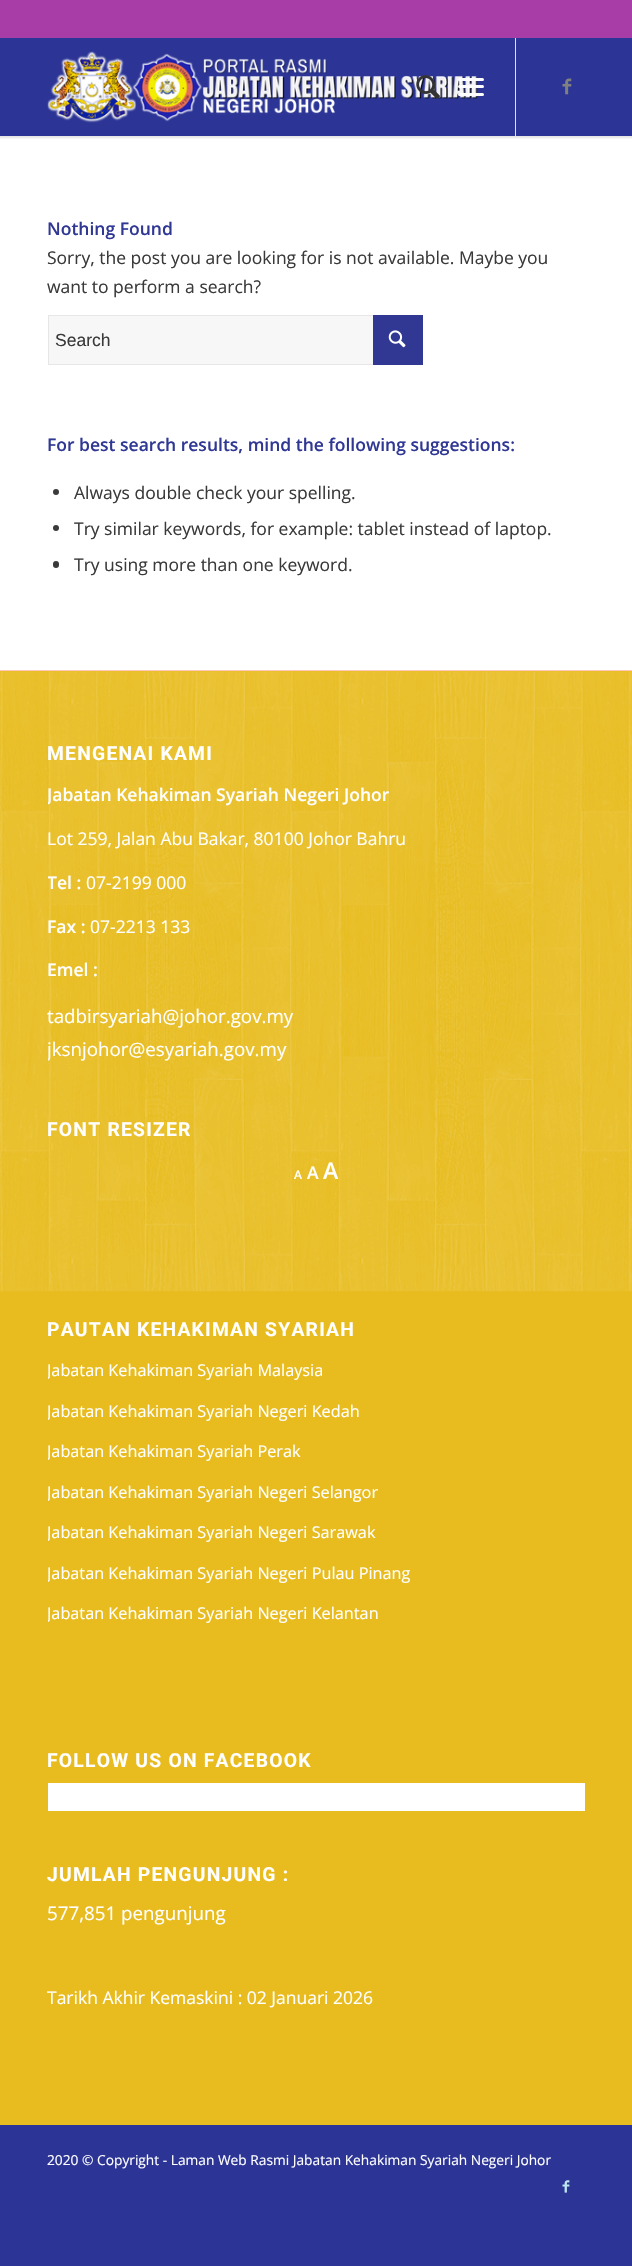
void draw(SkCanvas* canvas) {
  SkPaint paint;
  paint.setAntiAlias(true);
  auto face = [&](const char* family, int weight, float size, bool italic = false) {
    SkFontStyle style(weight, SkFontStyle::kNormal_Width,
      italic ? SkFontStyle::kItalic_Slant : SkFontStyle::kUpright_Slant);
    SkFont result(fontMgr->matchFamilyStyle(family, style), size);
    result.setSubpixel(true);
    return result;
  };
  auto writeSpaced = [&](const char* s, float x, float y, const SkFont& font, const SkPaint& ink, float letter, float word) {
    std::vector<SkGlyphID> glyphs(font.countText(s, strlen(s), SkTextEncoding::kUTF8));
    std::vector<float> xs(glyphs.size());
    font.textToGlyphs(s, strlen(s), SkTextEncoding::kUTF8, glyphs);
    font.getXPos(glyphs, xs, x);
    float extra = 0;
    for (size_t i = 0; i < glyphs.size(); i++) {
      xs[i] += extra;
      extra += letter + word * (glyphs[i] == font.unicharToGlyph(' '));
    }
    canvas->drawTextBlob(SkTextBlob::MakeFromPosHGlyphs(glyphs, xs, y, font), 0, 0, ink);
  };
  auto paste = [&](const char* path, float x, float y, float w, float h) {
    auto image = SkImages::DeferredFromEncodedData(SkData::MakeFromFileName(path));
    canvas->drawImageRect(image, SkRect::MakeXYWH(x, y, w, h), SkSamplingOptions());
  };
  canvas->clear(0xff2c3595);
  paint.setColor(0xffffffff);
  canvas->drawRect(SkRect::MakeXYWH(0, 136, 632, 534), paint);
  canvas->save();
  canvas->clipRect(SkRect::MakeXYWH(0, 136, 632, 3));
  paint.setColor(0x1a000000);
  paint.setMaskFilter(SkMaskFilter::MakeBlur(kNormal_SkBlurStyle, 1));
  canvas->drawRect(SkRect::MakeXYWH(-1, -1, 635, 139), paint);
  paint.setMaskFilter(nullptr);
  canvas->restore();
  paint.setColor(0xffe1e1e1);
  canvas->drawRect(SkRect::MakeXYWH(515, 36, 1, 100), paint);
  paint.setColor(0xffa83da8);
  canvas->drawRect(SkRect::MakeXYWH(0, 0, 632, 38), paint);
  paste("img/1.png", 47, 51, 431, 72);
  paste("img/2.png", 416, 75, 24, 24);
  paint.setColor(0xfffcfcfc);
  canvas->drawRoundRect(SkRect::MakeXYWH(458, 85, 26, 3), 1.5f, 1.5f, paint);
  canvas->drawRoundRect(SkRect::MakeXYWH(458, 78, 26, 3), 1.5f, 1.5f, paint);
  canvas->drawRoundRect(SkRect::MakeXYWH(458, 93, 26, 3), 1.5f, 1.5f, paint);
  paste("img/3.png", 562, 78, 10, 17);
  paint.setColor(0xfff7f7f7);
  canvas->drawRect(SkRect::MakeXYWH(49, 316, 324, 48), paint);
  paint.setStroke(true);
  paint.setStrokeWidth(1);
  paint.setColor(0xffe6e6e6);
  canvas->drawRect(SkRect::MakeXYWH(48.5f, 315.5f, 374, 49), paint);
  paint.setStroke(false);
  paint.setColor(0xff303894);
  canvas->drawRect(SkRect::MakeXYWH(373, 315, 50, 50), paint);
  paste("img/4.png", 388, 330, 18, 18);
  paint.setColor(0xff3b3a3b);
  canvas->drawCircle(56, 492, 3, paint);
  canvas->drawCircle(56, 528, 3, paint);
  canvas->drawRoundRect(SkRect::MakeXYWH(53, 561, 6, 7), 3, 3, paint);
  paint.setColor(0xffe8bc1e);
  canvas->drawRect(SkRect::MakeXYWH(0, 671, 632, 1454), paint);
  paste("img/5.png", 0, 671, 632, 621);
  paint.setColor(0xffffc8ba);
  canvas->drawRect(SkRect::MakeXYWH(0, 670, 632, 1), paint);
  paint.setColor(0xffffffff);
  canvas->drawRect(SkRect::MakeXYWH(48, 1783, 537, 28), paint);
  paste("img/6.png", 562, 2180, 8, 13);
  auto f0 = face("Open Sans", 600, 17.5f);
  paint.setColor(0xff303894);
  canvas->drawString("Nothing Found", 47, 235, f0, paint);
  auto f1 = face("Open Sans", 400, 17.5f);
  paint.setColor(0xff3b3a3b);
  canvas->drawString("Sorry, the post you are looking for is not available. Maybe you", 47, 264, f1, paint);
  canvas->drawString("want to perform a search?", 47, 293, f1, paint);
  auto f2 = face("Liberation Sans", 400, 17.5f);
  canvas->drawString("Search", 55, 346, f2, paint);
  paint.setColor(0xff303894);
  canvas->drawString("For best search results, mind the following suggestions:", 47, 451, f0, paint);
  paint.setColor(0xff3b3a3b);
  {
    const struct { const char* s; float x, y; } items[] = {
      {"Always double check your spelling.", 74, 499},
      {"Try similar keywords, for example: tablet instead of laptop.", 74, 535},
      {"Try using more than one keyword.", 74, 571},
    };
    for (auto [s, x, y] : items) {
      canvas->drawString(s, x, y, f1, paint);
    }
  }
  auto f3 = face("Roboto", 700, 19.25f);
  paint.setColor(0xffffffff);
  writeSpaced("MENGENAI KAMI", 47, 760, f3, paint, 1.25f, 0);
  canvas->save();
  canvas->clipRect(SkRect::MakeXYWH(48, 728, 537, 338));
  canvas->drawString("Jabatan Kehakiman Syariah Negeri Johor", 47, 801, f0, paint);
  canvas->restore();
  canvas->drawString("Lot 259, Jalan Abu Bakar, 80100 Johor Bahru", 47, 845, f1, paint);
  canvas->save();
  canvas->clipRect(SkRect::MakeXYWH(48, 728, 537, 338));
  canvas->drawString("Tel :", 47, 889, f0, paint);
  canvas->restore();
  canvas->drawString("07-2199 000", 86, 889, f1, paint);
  canvas->drawString("Fax :", 47, 933, f0, paint);
  canvas->drawString("07-2213 133", 90, 933, f1, paint);
  canvas->drawString("Emel :", 47, 976, f0, paint);
  auto f4 = face("Open Sans", 400, 18.75f);
  canvas->drawString("tadbirsyariah@johor.gov.my", 47, 1023, f4, paint);
  canvas->save();
  canvas->clipRect(SkRect::MakeXYWH(48, 999, 537, 67));
  canvas->drawString("jksnjohor@esyariah.gov.my", 47, 1056, f4, paint);
  canvas->restore();
  writeSpaced("FONT RESIZER", 47, 1136, f3, paint, 1.25f, 0);
  auto f5 = face("Open Sans", 600, 12);
  canvas->drawString("A", 294, 1179, f5, paint);
  canvas->drawString("A", 307, 1179, f0, paint);
  auto f6 = face("Open Sans", 600, 23);
  canvas->drawString("A", 323, 1179, f6, paint);
  writeSpaced("PAUTAN KEHAKIMAN SYARIAH", 47, 1336, f3, paint, 1.25f, 0);
  canvas->save();
  canvas->clipRect(SkRect::MakeXYWH(48, 1304, 537, 331));
  auto f7 = face("Open Sans", 400, 16.25f);
  {
    const struct { const char* s; float x, y; } items[] = {
      {"Jabatan Kehakiman Syariah Malaysia", 47, 1376},
      {"Jabatan Kehakiman Syariah Negeri Kedah", 47, 1417},
      {"Jabatan Kehakiman Syariah Perak", 47, 1457},
      {"Jabatan Kehakiman Syariah Negeri Selangor", 47, 1498},
      {"Jabatan Kehakiman Syariah Negeri Sarawak", 47, 1538},
      {"Jabatan Kehakiman Syariah Negeri Pulau Pinang", 47, 1579},
      {"Jabatan Kehakiman Syariah Negeri Kelantan", 47, 1619},
    };
    for (auto [s, x, y] : items) {
      canvas->drawString(s, x, y, f7, paint);
    }
  }
  canvas->restore();
  writeSpaced("FOLLOW US ON FACEBOOK", 47, 1767, f3, paint, 1.25f, 0);
  writeSpaced("JUMLAH PENGUNJUNG :", 47, 1881, f3, paint, 1.25f, 0);
  canvas->drawString("577,851 pengunjung", 47, 1920, f4, paint);
  canvas->drawString("Tarikh Akhir Kemaskini : 02 Januari 2026", 47, 2004, f1, paint);
  auto f8 = face("Open Sans", 400, 13.75f);
  canvas->drawString("2020 © Copyright - Laman Web Rasmi Jabatan Kehakiman Syariah Negeri Johor", 47, 2165, f8, paint);
}
